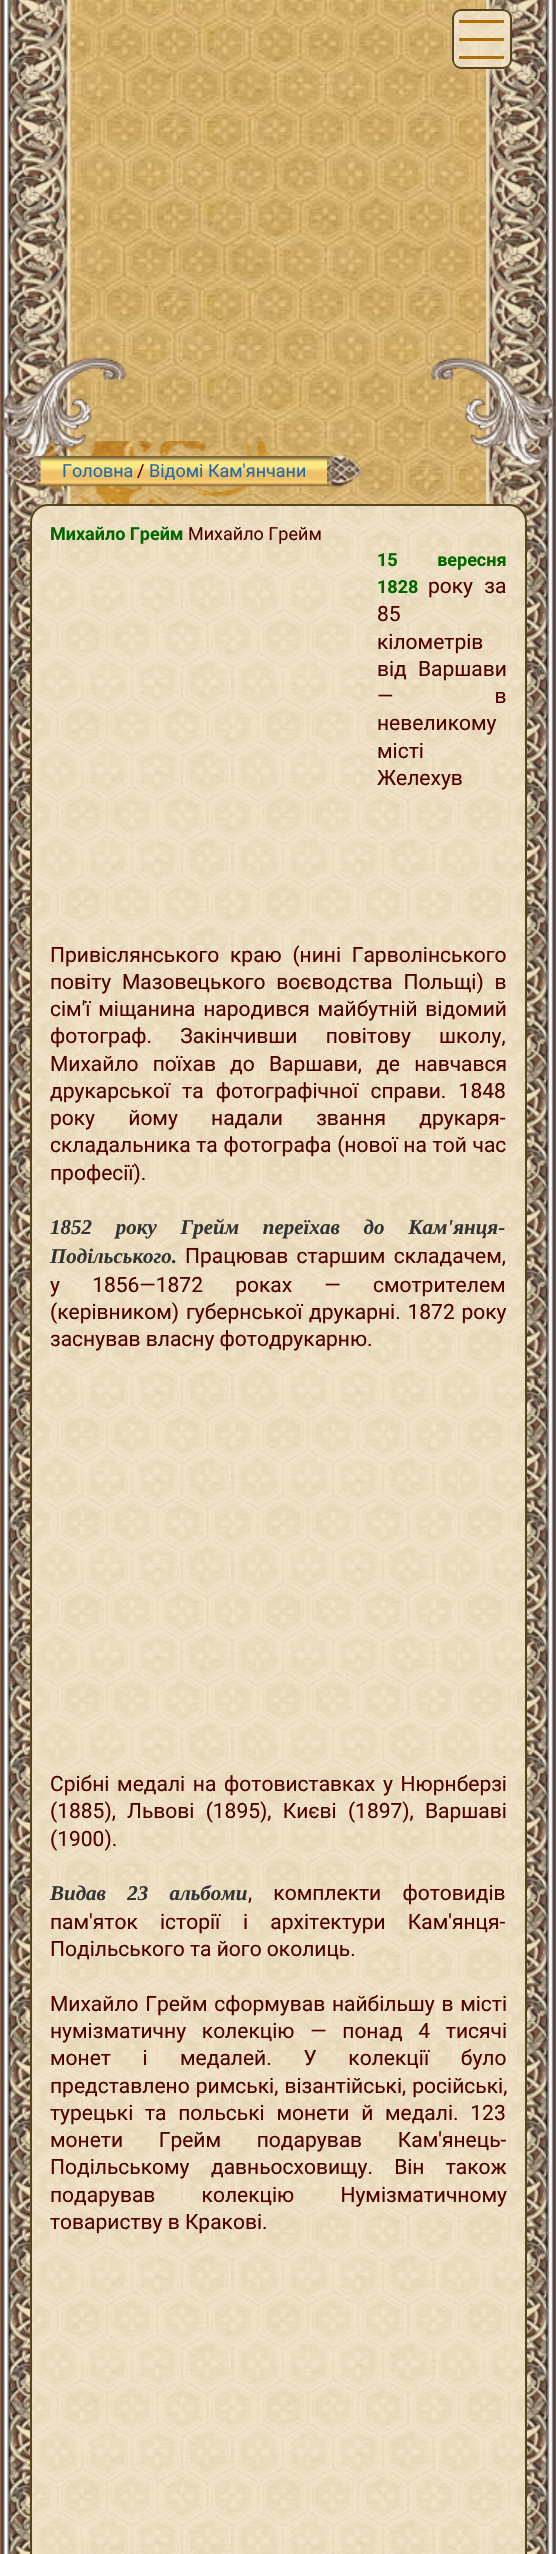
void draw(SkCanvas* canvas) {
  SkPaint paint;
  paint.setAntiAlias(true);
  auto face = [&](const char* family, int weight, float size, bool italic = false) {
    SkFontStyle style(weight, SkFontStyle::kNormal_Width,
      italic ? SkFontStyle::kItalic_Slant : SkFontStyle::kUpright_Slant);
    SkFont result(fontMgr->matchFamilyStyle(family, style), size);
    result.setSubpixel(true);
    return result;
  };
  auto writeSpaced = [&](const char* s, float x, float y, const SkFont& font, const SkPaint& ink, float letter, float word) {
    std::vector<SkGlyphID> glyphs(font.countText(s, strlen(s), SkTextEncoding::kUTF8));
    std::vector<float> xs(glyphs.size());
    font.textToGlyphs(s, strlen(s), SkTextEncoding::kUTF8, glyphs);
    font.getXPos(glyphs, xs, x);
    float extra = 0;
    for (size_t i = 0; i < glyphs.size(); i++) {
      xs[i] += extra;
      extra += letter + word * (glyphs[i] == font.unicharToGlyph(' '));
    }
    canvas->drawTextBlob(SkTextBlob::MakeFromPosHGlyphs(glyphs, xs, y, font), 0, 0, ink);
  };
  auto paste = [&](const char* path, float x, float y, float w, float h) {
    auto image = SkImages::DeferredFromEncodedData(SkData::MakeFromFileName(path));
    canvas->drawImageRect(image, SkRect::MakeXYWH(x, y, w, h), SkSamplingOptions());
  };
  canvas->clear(0xffffffff);
  paste("img/1.png", 70, 0, 416, 504);
  paste("img/2.png", 0, 0, 71, 2554);
  paste("img/3.png", 486, 0, 70, 2554);
  paste("img/10.png", 30, 441, 241, 68);
  paste("img/4.png", 1, 357, 126, 110);
  paste("img/5.png", 430, 357, 125, 111);
  paste("img/6.png", 31, 456, 305, 31);
  paste("img/7.png", 4, 453, 37, 35);
  paste("img/8.png", 327, 453, 36, 35);
  paste("img/9.png", 451, 9, 61, 60);
  paint.setStroke(true);
  paint.setStrokeWidth(2);
  paint.setColor(0xff58441c);
  canvas->drawRoundRect(SkRect::MakeXYWH(453, 10, 58, 58), 8, 8, paint);
  paint.setStroke(false);
  {
    const struct { float x, y, w, h; SkColor color; } items[] = {
      {459, 20, 45, 3, 0xffaf6f00},
      {459, 38, 45, 3, 0xffaf6f00},
      {459, 56, 45, 3, 0xffaf6f00},
    };
    for (auto [x, y, w, h, color] : items) {
      paint.setColor(color);
      canvas->drawRect(SkRect::MakeXYWH(x, y, w, h), paint);
    }
  }
  paste("img/11.png", 30, 504, 497, 2050);
  paint.setStroke(true);
  paint.setColor(0xff58441c);
  canvas->drawRoundRect(SkRect::MakeXYWH(31, 505, 495, 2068), 17, 17, paint);
  auto f0 = face("Roboto", 400, 18);
  paint.setStroke(false);
  paint.setColor(0xff216baa);
  canvas->drawString("Головна", 62, 477, f0, paint);
  paint.setColor(0xff4f0101);
  canvas->drawString("/", 137, 477, f0, paint);
  paint.setColor(0xff216baa);
  canvas->drawString("Відомі Кам'янчани", 149, 477, f0, paint);
  auto f1 = face("Roboto", 700, 18);
  paint.setColor(0xff006600);
  canvas->drawString("Михайло Грейм", 50, 540, f1, paint);
  paint.setColor(0xff4f0101);
  canvas->drawString("Михайло Грейм", 188, 540, f0, paint);
  paint.setColor(0xff006600);
  writeSpaced("15 вересня", 377, 566, f1, paint, 0, 35);
  canvas->drawString("1828", 377, 593, f1, paint);
  auto f2 = face("Roboto", 400, 21);
  paint.setColor(0xff4f0101);
  writeSpaced("року за", 428, 593, f2, paint, 0, 6);
  canvas->drawString("85", 377, 621, f2, paint);
  canvas->drawString("кілометрів", 377, 649, f2, paint);
  writeSpaced("від Варшави", 377, 676, f2, paint, 0, 6);
  writeSpaced("— в", 377, 703, f2, paint, 0, 96);
  {
    const struct { const char* s; float x, y; } items[] = {
      {"невеликому", 377, 730},
      {"місті", 377, 758},
      {"Желехув", 377, 785},
    };
    for (auto [s, x, y] : items) {
      canvas->drawString(s, x, y, f2, paint);
    }
  }
  writeSpaced("Привіслянського краю (нині Гарволінського", 50, 962, f2, paint, 0, 5.5f);
  canvas->drawString("повіту", 50, 989, f2, paint);
  writeSpaced("Мазовецького воєводства Польщі) в", 122, 989, f2, paint, 0, 5.5f);
  writeSpaced("сім'ї міщанина народився майбутній відомий", 50, 1016, f2, paint, 0, 2.5f);
  writeSpaced("фотограф. Закінчивши повітову школу,", 50, 1043, f2, paint, 0, 23);
  writeSpaced("Михайло поїхав до Варшави, де навчався", 50, 1071, f2, paint, 0, 9);
  writeSpaced("друкарської та фотографічної справи. 1848", 50, 1098, f2, paint, 0, 7);
  writeSpaced("року йому надали звання друкаря-", 50, 1125, f2, paint, 0, 28);
  writeSpaced("складальника та фотографа (нової на той час", 50, 1152, f2, paint, 0, 0.5f);
  canvas->drawString("професії).", 50, 1180, f2, paint);
  auto f3 = face("Liberation Serif", 700, 21, true);
  paint.setColor(0xff333333);
  writeSpaced("1852 року Грейм переїхав до Кам'янця-", 50, 1234, f3, paint, 0, 18.5f);
  canvas->drawString("Подільського.", 50, 1263, f3, paint);
  paint.setColor(0xff4f0101);
  writeSpaced("Працював старшим складачем,", 185, 1263, f2, paint, 0, 3);
  writeSpaced("у 1856—1872 роках — смотрителем", 50, 1292, f2, paint, 0, 27);
  canvas->drawString("(керівником)", 50, 1319, f2, paint);
  writeSpaced("губернської друкарні. 1872 року", 186, 1319, f2, paint, 0, 1.5f);
  canvas->drawString("заснував власну фотодрукарню.", 50, 1346, f2, paint);
  writeSpaced("Срібні медалі на фотовиставках у Нюрнберзі", 50, 1791, f2, paint, 0, 2.5f);
  writeSpaced("(1885), Львові (1895), Києві (1897),", 50, 1818, f2, paint, 0, 6);
  canvas->drawString("Варшаві", 425, 1818, f2, paint);
  canvas->drawString("(1900).", 50, 1846, f2, paint);
  paint.setColor(0xff333333);
  writeSpaced("Видав 23 альбоми", 50, 1900, f3, paint, 0, 16);
  paint.setColor(0xff4f0101);
  writeSpaced(", комплекти фотовидів", 248, 1900, f2, paint, 0, 16);
  writeSpaced("пам'яток історії", 50, 1929, f2, paint, 0, 17);
  writeSpaced("і архітектури Кам'янця-", 243, 1929, f2, paint, 0, 17);
  canvas->drawString("Подільського та його околиць.", 50, 1956, f2, paint);
  writeSpaced("Михайло Грейм сформував найбільшу в місті", 50, 2011, f2, paint, 0, 1.5f);
  writeSpaced("нумізматичну колекцію — понад 4 тисячі", 50, 2038, f2, paint, 0, 10.5f);
  writeSpaced("монет і", 50, 2065, f2, paint, 0, 26.5f);
  writeSpaced("медалей. У колекції було", 180, 2065, f2, paint, 0, 26.5f);
  writeSpaced("представлено римські, візантійські, російські,", 50, 2093, f2, paint, 0, 1);
  canvas->drawString("турецькі", 50, 2120, f2, paint);
  writeSpaced("та польські монети й медалі. 123", 145, 2120, f2, paint, 0, 6.5f);
  writeSpaced("монети Грейм подарував Кам'янець-", 50, 2147, f2, paint, 0, 30.5f);
  canvas->drawString("Подільському", 50, 2174, f2, paint);
  writeSpaced("давньосховищу. Він також", 211, 2174, f2, paint, 0, 16);
  writeSpaced("подарував колекцію Нумізматичному", 50, 2202, f2, paint, 0, 41);
  canvas->drawString("товариству в Кракові.", 50, 2229, f2, paint);
}
